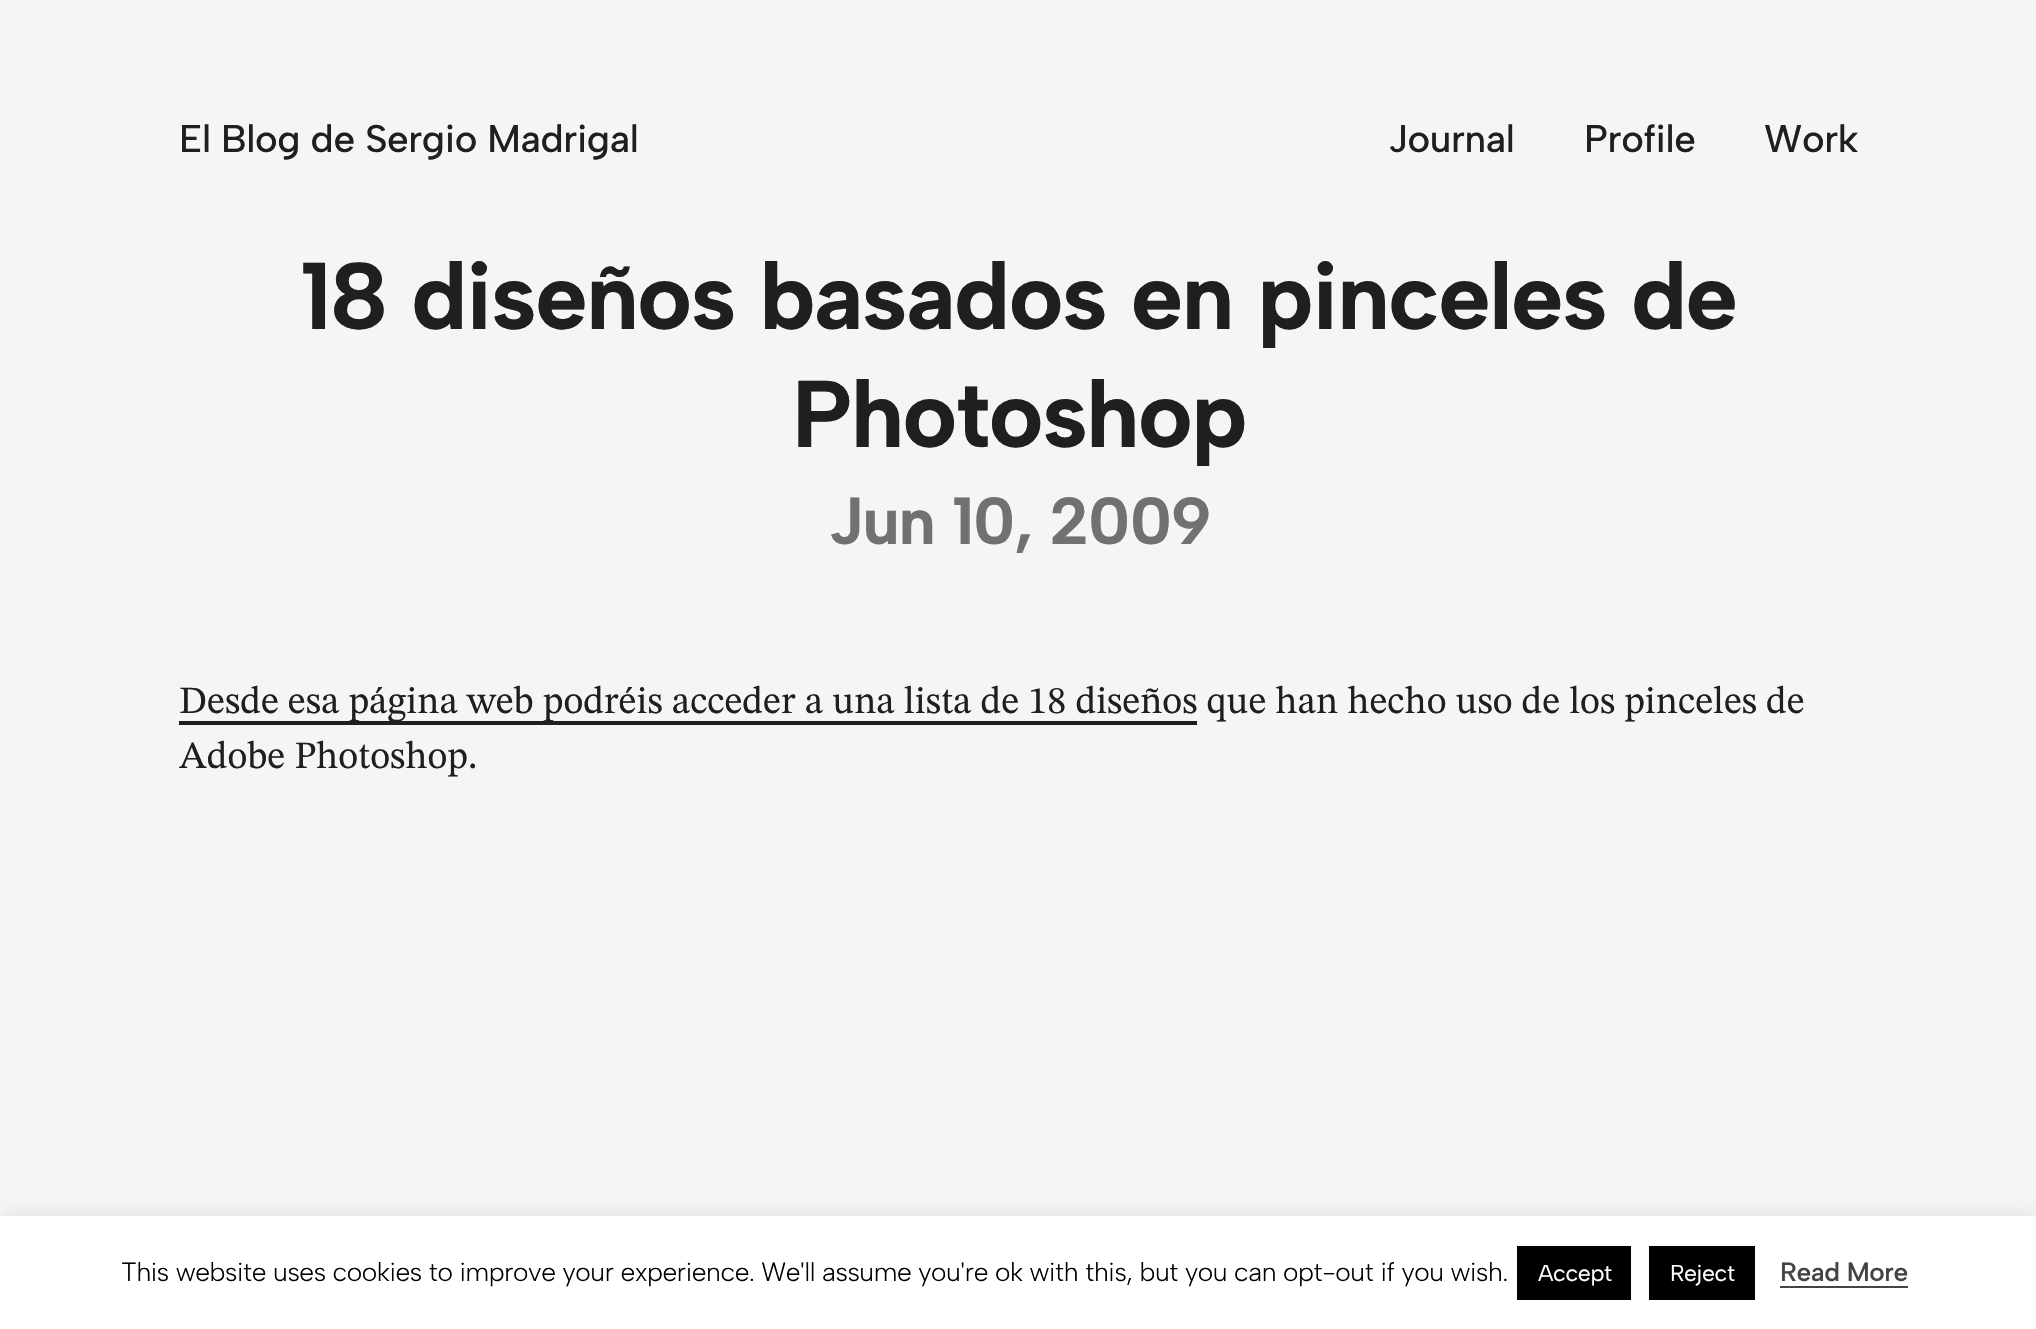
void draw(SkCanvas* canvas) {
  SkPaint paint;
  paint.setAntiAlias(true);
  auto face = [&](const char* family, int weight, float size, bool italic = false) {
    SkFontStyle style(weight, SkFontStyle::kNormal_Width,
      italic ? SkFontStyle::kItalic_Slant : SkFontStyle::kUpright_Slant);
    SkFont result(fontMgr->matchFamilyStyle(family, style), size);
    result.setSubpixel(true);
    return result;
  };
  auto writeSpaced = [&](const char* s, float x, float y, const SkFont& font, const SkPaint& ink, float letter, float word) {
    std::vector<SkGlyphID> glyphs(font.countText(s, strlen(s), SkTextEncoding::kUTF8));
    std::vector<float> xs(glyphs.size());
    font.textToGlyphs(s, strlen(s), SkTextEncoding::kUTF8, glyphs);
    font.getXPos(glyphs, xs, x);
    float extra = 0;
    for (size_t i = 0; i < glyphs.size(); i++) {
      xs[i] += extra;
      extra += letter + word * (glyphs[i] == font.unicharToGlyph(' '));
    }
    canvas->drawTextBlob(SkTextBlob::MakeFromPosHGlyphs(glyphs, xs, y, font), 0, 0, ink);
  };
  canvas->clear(0xfff7f5f3);
  paint.setColor(0xff1d201f);
  canvas->drawRect(SkRect::MakeXYWH(179, 721, 1018, 4), paint);
  paint.setColor(0x4dacabab);
  paint.setMaskFilter(SkMaskFilter::MakeBlur(kNormal_SkBlurStyle, 9));
  canvas->drawRect(SkRect::MakeXYWH(0, 1215, 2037, 113), paint);
  paint.setMaskFilter(nullptr);
  {
    const struct { float x, y, w, h; SkColor color; } items[] = {
      {0, 1216, 2036, 113, 0xffffffff},
      {1517, 1246, 114, 54, 0xff000000},
      {1649, 1246, 106, 54, 0xff000000},
      {1780, 1286, 128, 2, 0xff444444},
    };
    for (auto [x, y, w, h, color] : items) {
      paint.setColor(color);
      canvas->drawRect(SkRect::MakeXYWH(x, y, w, h), paint);
    }
  }
  auto f0 = face("Albert Sans", 500, 38.5f);
  paint.setColor(0xff1d201f);
  {
    const struct { const char* s; float x, y; } items[] = {
      {"El Blog de Sergio Madrigal", 179, 152},
      {"Journal", 1388, 152},
      {"Profile", 1584, 152},
      {"Work", 1764, 152},
    };
    for (auto [s, x, y] : items) {
      writeSpaced(s, x, y, f0, paint, -0.39f, 0);
    }
  }
  auto f1 = face("Albert Sans", 700, 94.5f);
  writeSpaced("18 diseños basados en pinceles de", 300, 329, f1, paint, -1.9f, 0);
  writeSpaced("Photoshop", 792, 447, f1, paint, -1.9f, 0);
  auto f2 = face("Albert Sans", 700, 66.5f);
  paint.setColor(0xff707170);
  writeSpaced("Jun 10, 2009", 828, 544, f2, paint, -1.25f, 0);
  auto f3 = face("STIX Two Text", 400, 38.5f);
  paint.setColor(0xff1d201f);
  canvas->drawString("Desde esa página web podréis acceder a una lista de 18 diseños que han hecho uso de los pinceles de", 179, 713, f3, paint);
  canvas->drawString("Adobe Photoshop.", 179, 768, f3, paint);
  auto f4 = face("Albert Sans", 300, 26.25f);
  paint.setColor(0xff000000);
  writeSpaced("This website uses cookies to improve your experience. We'll assume you're ok with this, but you can opt-out if you wish.", 121, 1281, f4, paint, -0.39f, 0);
  auto f5 = face("Albert Sans", 400, 23);
  paint.setColor(0xffffffff);
  writeSpaced("Accept", 1538, 1281, f5, paint, -0.39f, 0);
  writeSpaced("Reject", 1670, 1281, f5, paint, -0.39f, 0);
  auto f6 = face("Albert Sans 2", 500, 26.25f);
  paint.setColor(0xff444444);
  writeSpaced("Read More", 1780, 1281, f6, paint, -0.39f, 0);
}
